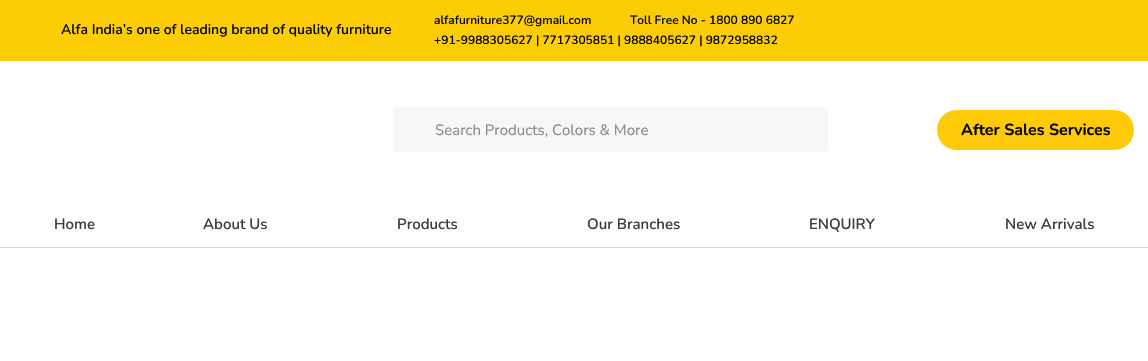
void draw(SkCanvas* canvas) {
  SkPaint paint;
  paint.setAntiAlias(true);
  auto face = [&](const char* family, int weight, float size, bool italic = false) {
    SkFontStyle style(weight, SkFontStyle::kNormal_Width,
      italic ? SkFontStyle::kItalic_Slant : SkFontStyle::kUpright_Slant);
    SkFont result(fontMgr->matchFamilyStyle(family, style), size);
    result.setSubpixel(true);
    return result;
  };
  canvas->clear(0xffffffff);
  paint.setColor(0xfffccc04);
  canvas->drawRect(SkRect::MakeXYWH(0, 0, 1148, 61), paint);
  paint.setColor(0xffd3d3d3);
  canvas->drawRect(SkRect::MakeXYWH(0, 247, 1148, 1), paint);
  paint.setColor(0xfff7f7f7);
  canvas->drawRoundRect(SkRect::MakeXYWH(393, 107, 435, 45), 3, 3, paint);
  paint.setColor(0xffffcb08);
  canvas->drawRoundRect(SkRect::MakeXYWH(937, 110, 197, 40), 20, 20, paint);
  auto f0 = face("Nunito", 600, 14);
  paint.setColor(0xff030303);
  canvas->drawString("Alfa India’s one of leading brand of quality furniture", 61, 34, f0, paint);
  auto f1 = face("Nunito", 600, 12);
  {
    const struct { const char* s; float x, y; } items[] = {
      {"alfafurniture377@gmail.com", 434, 24},
      {"Toll Free No - 1800 890 6827", 630, 24},
      {"+91-9988305627 | 7717305851 | 9888405627 | 9872958832", 434, 44},
    };
    for (auto [s, x, y] : items) {
      canvas->drawString(s, x, y, f1, paint);
    }
  }
  auto f2 = face("Nunito", 400, 15);
  paint.setColor(0xff878787);
  canvas->drawString("Search Products, Colors & More", 435, 135, f2, paint);
  auto f3 = face("Nunito", 700, 16);
  paint.setColor(0xff030303);
  canvas->drawString("After Sales Services", 961, 135, f3, paint);
  auto f4 = face("Nunito", 600, 15);
  paint.setColor(0xff3c3c3c);
  {
    const struct { const char* s; float x, y; } items[] = {
      {"Home", 54, 229},
      {"About Us", 203, 229},
      {"Products", 397, 229},
      {"Our Branches", 587, 229},
      {"ENQUIRY", 809, 229},
      {"New Arrivals", 1005, 229},
    };
    for (auto [s, x, y] : items) {
      canvas->drawString(s, x, y, f4, paint);
    }
  }
}
